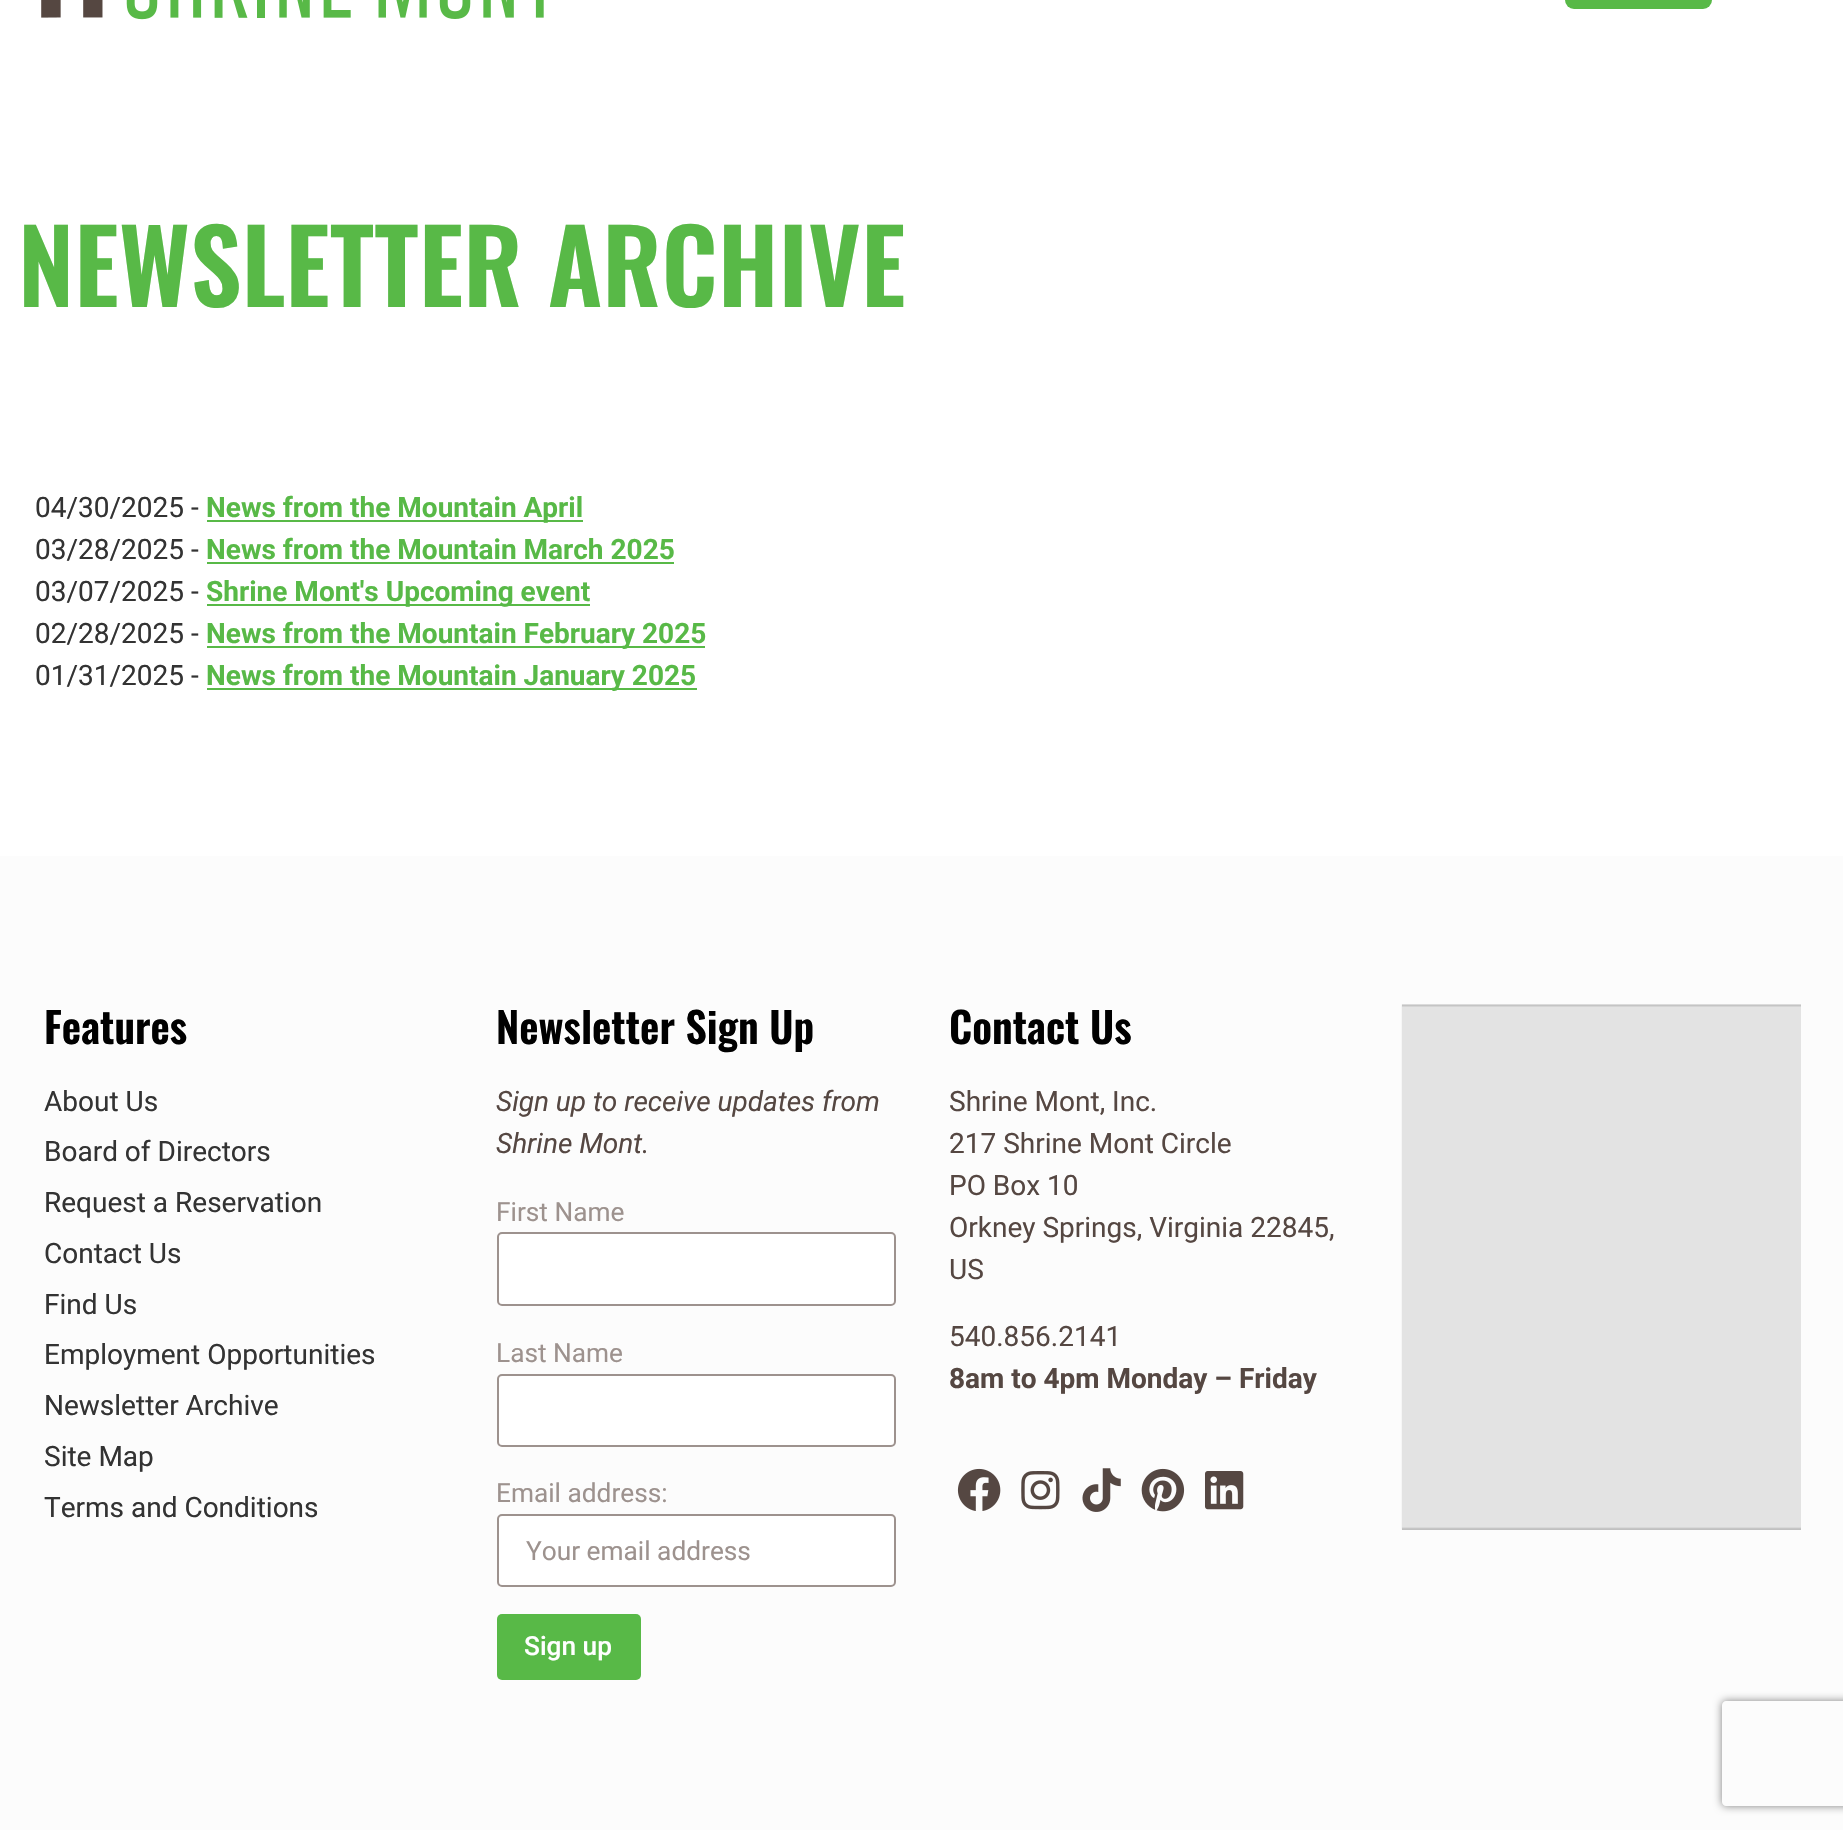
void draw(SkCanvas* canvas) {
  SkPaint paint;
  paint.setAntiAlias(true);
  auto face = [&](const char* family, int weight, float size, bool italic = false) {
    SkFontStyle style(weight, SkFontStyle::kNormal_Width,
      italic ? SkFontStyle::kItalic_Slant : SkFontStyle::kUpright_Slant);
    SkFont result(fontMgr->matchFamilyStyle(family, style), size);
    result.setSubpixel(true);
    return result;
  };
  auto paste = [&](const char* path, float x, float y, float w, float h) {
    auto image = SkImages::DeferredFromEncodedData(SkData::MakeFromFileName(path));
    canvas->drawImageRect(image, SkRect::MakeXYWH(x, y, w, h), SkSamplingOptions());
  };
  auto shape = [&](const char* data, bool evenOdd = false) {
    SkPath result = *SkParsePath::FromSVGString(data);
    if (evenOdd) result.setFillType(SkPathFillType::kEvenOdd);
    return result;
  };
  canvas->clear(0xffffffff);
  paste("img/1.png", 41, 0, 503, 20);
  paint.setColor(0xff58b947);
  canvas->drawRoundRect(SkRect::MakeXYWH(1565, -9, 147, 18), 9, 9, paint);
  {
    const struct { float x, y, w, h; SkColor color; } items[] = {
      {207, 520, 376, 2, 0xff58b947},
      {207, 562, 467, 2, 0xff58b947},
      {207, 604, 383, 2, 0xff58b947},
      {207, 646, 498, 2, 0xff58b947},
      {207, 688, 490, 2, 0xff58b947},
      {0, 856, 1843, 974, 0xfffcfcfc},
    };
    for (auto [x, y, w, h, color] : items) {
      paint.setColor(color);
      canvas->drawRect(SkRect::MakeXYWH(x, y, w, h), paint);
    }
  }
  paint.setColor(0xffffffff);
  canvas->drawRoundRect(SkRect::MakeXYWH(498, 1233, 397, 72), 4, 4, paint);
  paint.setStroke(true);
  paint.setStrokeWidth(2);
  paint.setColor(0xff9d928e);
  canvas->drawRoundRect(SkRect::MakeXYWH(498, 1233, 397, 72), 4, 4, paint);
  paint.setStroke(false);
  paint.setColor(0xffffffff);
  canvas->drawRoundRect(SkRect::MakeXYWH(498, 1375, 397, 71), 4, 4, paint);
  paint.setStroke(true);
  paint.setColor(0xff9d928e);
  canvas->drawRoundRect(SkRect::MakeXYWH(498, 1375, 397, 71), 4, 4, paint);
  paint.setStroke(false);
  paint.setColor(0xffffffff);
  canvas->drawRoundRect(SkRect::MakeXYWH(498, 1515, 397, 71), 4, 4, paint);
  paint.setStroke(true);
  paint.setColor(0xff9d928e);
  canvas->drawRoundRect(SkRect::MakeXYWH(498, 1515, 397, 71), 4, 4, paint);
  paint.setStroke(false);
  paint.setColor(0xff58b947);
  canvas->drawRoundRect(SkRect::MakeXYWH(497, 1614, 144, 66), 5, 5, paint);
  paste("img/2.png", 957, 1468, 44, 43);
  paste("img/3.png", 1021, 1471, 39, 39);
  paste("img/4.png", 1082, 1468, 39, 44);
  paste("img/5.png", 1141, 1468, 44, 44);
  paste("img/6.png", 1205, 1471, 39, 39);
  paste("img/7.png", 1401, 1004, 400, 526);
  canvas->save();
  canvas->clipPath(shape("M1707 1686H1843V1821H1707ZM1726 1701H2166C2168 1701 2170 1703 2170 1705V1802C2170 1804 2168 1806 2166 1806H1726C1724 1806 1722 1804 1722 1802V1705C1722 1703 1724 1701 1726 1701Z", true), true);
  paint.setColor(0xff808080);
  paint.setMaskFilter(SkMaskFilter::MakeBlur(kNormal_SkBlurStyle, 4.5f));
  canvas->drawRoundRect(SkRect::MakeXYWH(1722, 1701, 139, 105), 4, 4, paint);
  paint.setMaskFilter(nullptr);
  canvas->restore();
  auto f0 = face("Oswald", 600, 101.5f);
  paint.setColor(0xff58b947);
  canvas->drawString("NEWSLETTER ARCHIVE", 18, 307, f0, paint);
  auto f1 = face("Roboto", 400, 28);
  paint.setColor(0xff333333);
  canvas->drawString("04/30/2025 -", 35, 517, f1, paint);
  auto f2 = face("Roboto", 700, 28);
  paint.setColor(0xff58b947);
  canvas->drawString("News from the Mountain April", 206, 517, f2, paint);
  paint.setColor(0xff333333);
  canvas->drawString("03/28/2025 -", 35, 559, f1, paint);
  paint.setColor(0xff58b947);
  canvas->drawString("News from the Mountain March 2025", 206, 559, f2, paint);
  paint.setColor(0xff333333);
  canvas->drawString("03/07/2025 -", 35, 601, f1, paint);
  paint.setColor(0xff58b947);
  canvas->drawString("Shrine Mont's Upcoming event", 206, 601, f2, paint);
  paint.setColor(0xff333333);
  canvas->drawString("02/28/2025 -", 35, 643, f1, paint);
  paint.setColor(0xff58b947);
  canvas->drawString("News from the Mountain February 2025", 206, 643, f2, paint);
  paint.setColor(0xff333333);
  canvas->drawString("01/31/2025 -", 35, 685, f1, paint);
  paint.setColor(0xff58b947);
  canvas->drawString("News from the Mountain January 2025", 206, 685, f2, paint);
  auto f3 = face("Oswald", 600, 42);
  paint.setColor(0xff000000);
  canvas->drawString("Features", 44, 1044, f3, paint);
  paint.setColor(0xff333333);
  {
    const struct { const char* s; float x, y; } items[] = {
      {"About Us", 44, 1111},
      {"Board of Directors", 44, 1161},
      {"Request a Reservation", 44, 1212},
      {"Contact Us", 44, 1263},
      {"Find Us", 44, 1314},
      {"Employment Opportunities", 44, 1364},
      {"Newsletter Archive", 44, 1415},
      {"Site Map", 44, 1466},
      {"Terms and Conditions", 44, 1517},
    };
    for (auto [s, x, y] : items) {
      canvas->drawString(s, x, y, f1, paint);
    }
  }
  paint.setColor(0xff000000);
  canvas->drawString("Newsletter Sign Up", 496, 1044, f3, paint);
  auto f4 = face("Roboto", 400, 28, true);
  paint.setColor(0xff554742);
  canvas->drawString("Sign up to receive updates from", 496, 1111, f4, paint);
  canvas->drawString("Shrine Mont.", 496, 1153, f4, paint);
  auto f5 = face("Roboto", 400, 26.25f);
  paint.setColor(0xff9d928e);
  {
    const struct { const char* s; float x, y; } items[] = {
      {"First Name", 496, 1221},
      {"Last Name", 496, 1362},
      {"Email address:", 496, 1502},
      {"Your email address", 526, 1560},
    };
    for (auto [s, x, y] : items) {
      canvas->drawString(s, x, y, f5, paint);
    }
  }
  auto f6 = face("Roboto", 500, 26.25f);
  paint.setColor(0xffffffff);
  canvas->drawString("Sign up", 524, 1655, f6, paint);
  paint.setColor(0xff000000);
  canvas->drawString("Contact Us", 949, 1044, f3, paint);
  paint.setColor(0xff554742);
  {
    const struct { const char* s; float x, y; } items[] = {
      {"Shrine Mont, Inc.", 949, 1111},
      {"217 Shrine Mont Circle", 949, 1153},
      {"PO Box 10", 949, 1195},
      {"Orkney Springs, Virginia 22845,", 949, 1237},
      {"US", 949, 1279},
      {"540.856.2141", 949, 1346},
    };
    for (auto [s, x, y] : items) {
      canvas->drawString(s, x, y, f1, paint);
    }
  }
  canvas->drawString("8am to 4pm Monday – Friday", 949, 1388, f2, paint);
}
